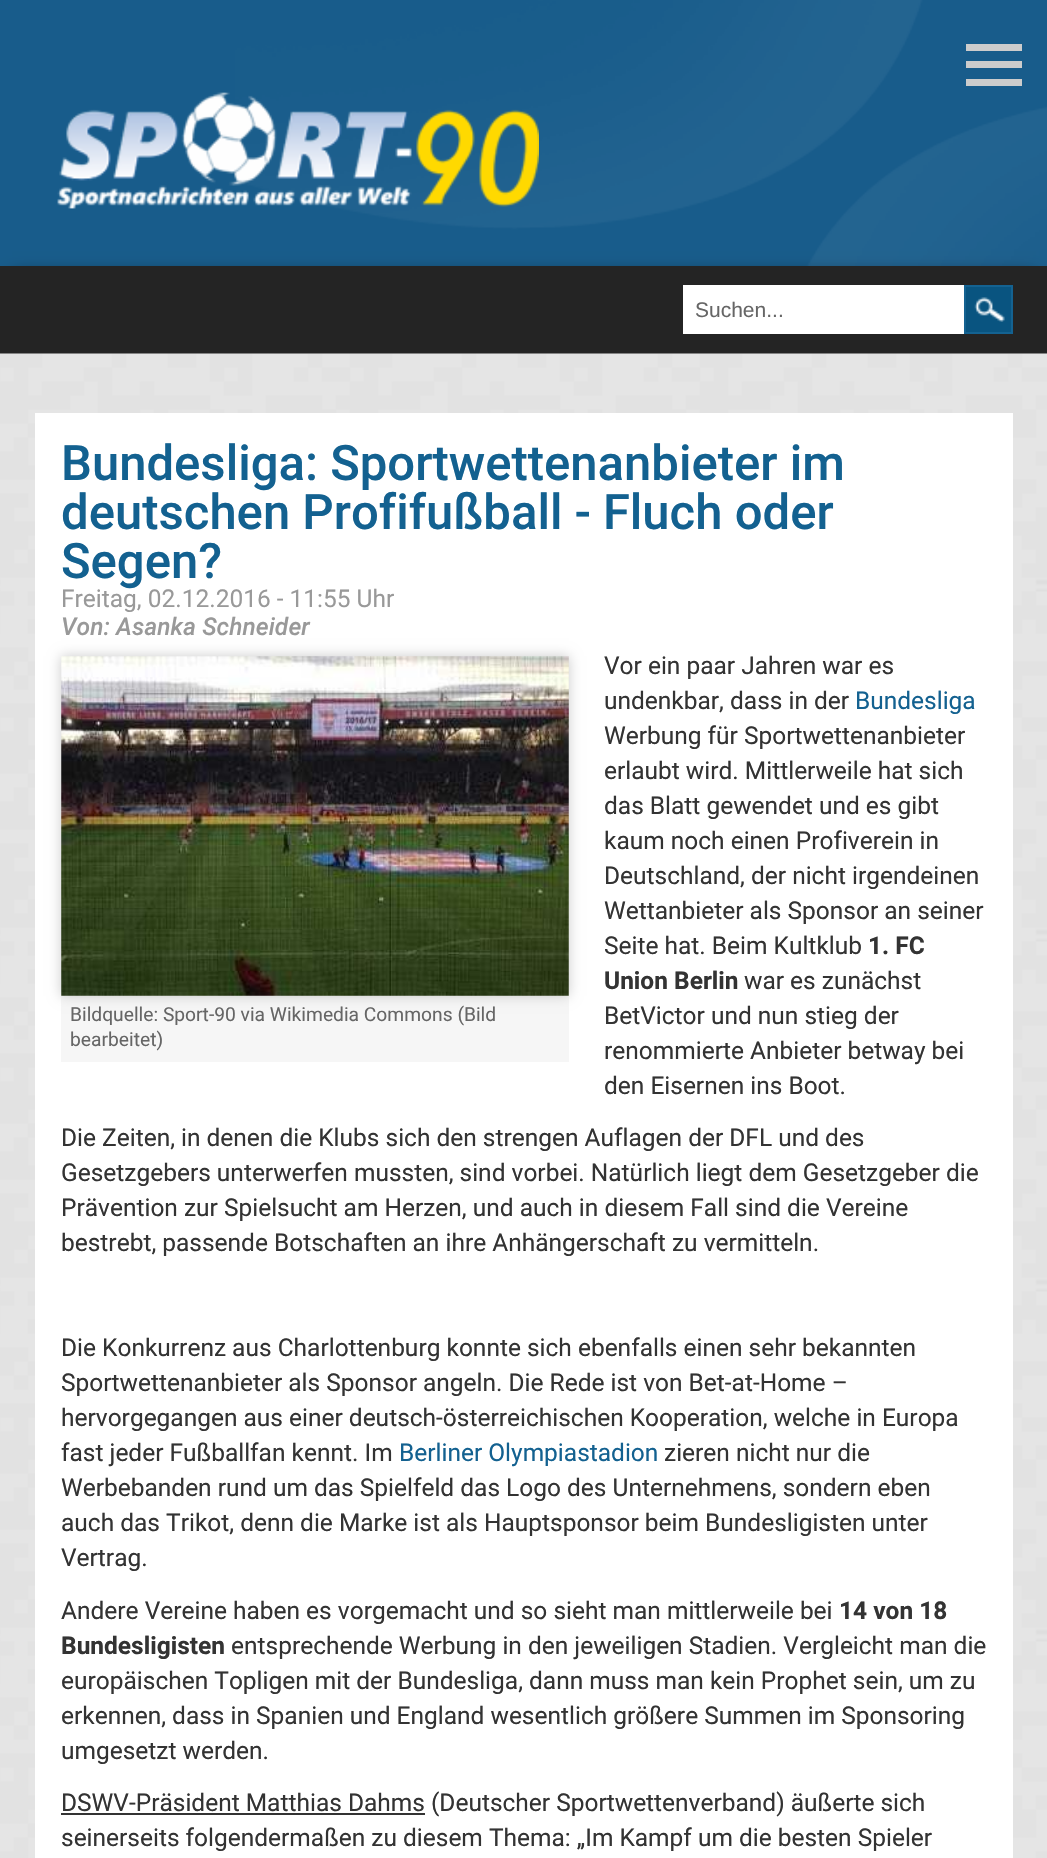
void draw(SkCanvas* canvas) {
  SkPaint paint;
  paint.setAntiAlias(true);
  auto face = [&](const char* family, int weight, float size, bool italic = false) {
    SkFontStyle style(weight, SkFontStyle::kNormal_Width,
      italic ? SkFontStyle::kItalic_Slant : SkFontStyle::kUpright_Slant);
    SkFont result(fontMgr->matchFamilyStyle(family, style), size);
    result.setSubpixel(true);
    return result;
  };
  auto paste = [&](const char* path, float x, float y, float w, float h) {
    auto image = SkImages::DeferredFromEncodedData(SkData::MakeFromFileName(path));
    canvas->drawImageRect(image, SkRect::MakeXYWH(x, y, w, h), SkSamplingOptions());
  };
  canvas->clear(0xff185c8b);
  paste("img/1.png", 235, 0, 812, 266);
  paste("img/2.png", 57, 92, 482, 117);
  {
    const struct { float x, y, w, h; SkColor color; } items[] = {
      {966, 44, 56, 7, 0xffcccccc},
      {966, 61, 56, 7, 0xffcccccc},
      {966, 79, 56, 7, 0xffcccccc},
    };
    for (auto [x, y, w, h, color] : items) {
      paint.setColor(color);
      canvas->drawRect(SkRect::MakeXYWH(x, y, w, h), paint);
    }
  }
  paint.setColor(0xff000000);
  paint.setMaskFilter(SkMaskFilter::MakeBlur(kNormal_SkBlurStyle, 9));
  canvas->drawRect(SkRect::MakeXYWH(12, 278, 1024, 63), paint);
  paint.setMaskFilter(nullptr);
  {
    const struct { float x, y, w, h; SkColor color; } items[] = {
      {0, 266, 1047, 88, 0xff242424},
      {683, 285, 281, 49, 0xffffffff},
      {966, 287, 45, 45, 0xff095480},
    };
    for (auto [x, y, w, h, color] : items) {
      paint.setColor(color);
      canvas->drawRect(SkRect::MakeXYWH(x, y, w, h), paint);
    }
  }
  paste("img/3.png", 974, 297, 31, 25);
  paint.setStroke(true);
  paint.setStrokeWidth(2);
  paint.setColor(0xff146291);
  canvas->drawRect(SkRect::MakeXYWH(965, 286, 47, 47), paint);
  paste("img/4.png", 0, 353, 1047, 1505);
  paint.setStroke(false);
  paint.setColor(0xffffffff);
  canvas->drawRect(SkRect::MakeXYWH(35, 413, 978, 1445), paint);
  paint.setColor(0xfff6f6f6);
  canvas->drawRect(SkRect::MakeXYWH(61, 656, 508, 406), paint);
  paint.setColor(0xffcccccc);
  paint.setMaskFilter(SkMaskFilter::MakeBlur(kNormal_SkBlurStyle, 6));
  canvas->drawRect(SkRect::MakeXYWH(61, 656, 508, 340), paint);
  paint.setMaskFilter(nullptr);
  paste("img/5.png", 61, 656, 508, 340);
  paint.setColor(0xff333333);
  canvas->drawRect(SkRect::MakeXYWH(61, 1813, 364, 2), paint);
  auto f0 = face("Liberation Sans", 400, 21);
  paint.setColor(0xff666666);
  canvas->drawString("Suchen...", 695, 317, f0, paint);
  auto f1 = face("Roboto", 500, 49);
  paint.setColor(0xff136190);
  {
    const struct { const char* s; float x, y; } items[] = {
      {"Bundesliga: Sportwettenanbieter im", 61, 480},
      {"deutschen Profifußball - Fluch oder", 61, 529},
      {"Segen?", 61, 578},
    };
    for (auto [s, x, y] : items) {
      canvas->drawString(s, x, y, f1, paint);
    }
  }
  auto f2 = face("Roboto", 400, 24.5f);
  paint.setColor(0xff999999);
  canvas->drawString("Freitag, 02.12.2016 - 11:55 Uhr", 61, 607, f2, paint);
  auto f3 = face("Roboto", 500, 24.5f, true);
  canvas->drawString("Von: Asanka Schneider", 61, 635, f3, paint);
  auto f4 = face("Roboto", 400, 19.25f);
  paint.setColor(0xff666666);
  canvas->drawString("Bildquelle: Sport-90 via Wikimedia Commons (Bild", 70, 1021, f4, paint);
  canvas->drawString("bearbeitet)", 70, 1046, f4, paint);
  paint.setColor(0xff333333);
  canvas->drawString("Vor ein paar Jahren war es", 604, 674, f2, paint);
  canvas->drawString("undenkbar, dass in der", 604, 709, f2, paint);
  paint.setColor(0xff136190);
  canvas->drawString("Bundesliga", 855, 709, f2, paint);
  paint.setColor(0xff333333);
  {
    const struct { const char* s; float x, y; } items[] = {
      {"Werbung für Sportwettenanbieter", 604, 744},
      {"erlaubt wird. Mittlerweile hat sich", 604, 779},
      {"das Blatt gewendet und es gibt", 604, 814},
      {"kaum noch einen Profiverein in", 604, 849},
      {"Deutschland, der nicht irgendeinen", 604, 884},
      {"Wettanbieter als Sponsor an seiner", 604, 919},
      {"Seite hat. Beim Kultklub", 604, 954},
    };
    for (auto [s, x, y] : items) {
      canvas->drawString(s, x, y, f2, paint);
    }
  }
  auto f5 = face("Roboto", 700, 24.5f);
  canvas->drawString("1. FC", 868, 954, f5, paint);
  canvas->drawString("Union Berlin", 604, 989, f5, paint);
  {
    const struct { const char* s; float x, y; } items[] = {
      {"war es zunächst", 744, 989},
      {"BetVictor und nun stieg der", 604, 1024},
      {"renommierte Anbieter betway bei", 604, 1059},
      {"den Eisernen ins Boot.", 604, 1094},
      {"Die Zeiten, in denen die Klubs sich den strengen Auflagen der DFL und des", 61, 1146},
      {"Gesetzgebers unterwerfen mussten, sind vorbei. Natürlich liegt dem Gesetzgeber die", 61, 1181},
      {"Prävention zur Spielsucht am Herzen, und auch in diesem Fall sind die Vereine", 61, 1216},
      {"bestrebt, passende Botschaften an ihre Anhängerschaft zu vermitteln.", 61, 1251},
      {"Die Konkurrenz aus Charlottenburg konnte sich ebenfalls einen sehr bekannten", 61, 1356},
      {"Sportwettenanbieter als Sponsor angeln. Die Rede ist von Bet-at-Home –", 61, 1391},
      {"hervorgegangen aus einer deutsch-österreichischen Kooperation, welche in Europa", 61, 1426},
      {"fast jeder Fußballfan kennt. Im", 61, 1461},
    };
    for (auto [s, x, y] : items) {
      canvas->drawString(s, x, y, f2, paint);
    }
  }
  paint.setColor(0xff136190);
  canvas->drawString("Berliner Olympiastadion", 399, 1461, f2, paint);
  paint.setColor(0xff333333);
  {
    const struct { const char* s; float x, y; } items[] = {
      {"zieren nicht nur die", 664, 1461},
      {"Werbebanden rund um das Spielfeld das Logo des Unternehmens, sondern eben", 61, 1496},
      {"auch das Trikot, denn die Marke ist als Hauptsponsor beim Bundesligisten unter", 61, 1531},
      {"Vertrag.", 61, 1566},
      {"Andere Vereine haben es vorgemacht und so sieht man mittlerweile bei", 61, 1619},
    };
    for (auto [s, x, y] : items) {
      canvas->drawString(s, x, y, f2, paint);
    }
  }
  canvas->drawString("14 von 18", 839, 1619, f5, paint);
  canvas->drawString("Bundesligisten", 61, 1654, f5, paint);
  {
    const struct { const char* s; float x, y; } items[] = {
      {"entsprechende Werbung in den jeweiligen Stadien. Vergleicht man die", 231, 1654},
      {"europäischen Topligen mit der Bundesliga, dann muss man kein Prophet sein, um zu", 61, 1689},
      {"erkennen, dass in Spanien und England wesentlich größere Summen im Sponsoring", 61, 1724},
      {"umgesetzt werden.", 61, 1759},
      {"DSWV-Präsident Matthias Dahms (Deutscher Sportwettenverband) äußerte sich", 61, 1811},
      {"seinerseits folgendermaßen zu diesem Thema: „Im Kampf um die besten Spieler", 61, 1846},
    };
    for (auto [s, x, y] : items) {
      canvas->drawString(s, x, y, f2, paint);
    }
  }
}
